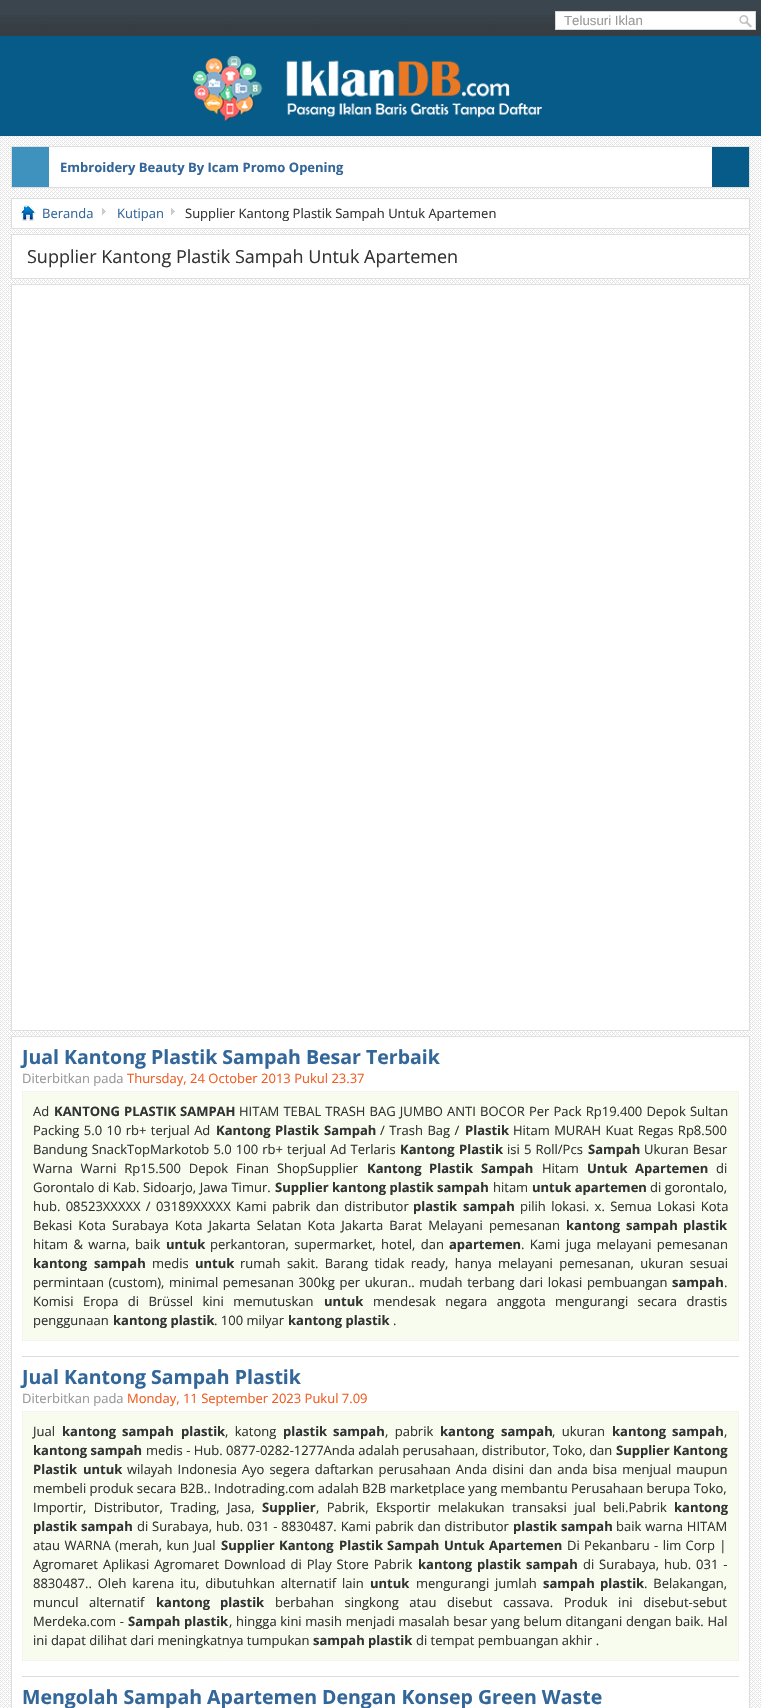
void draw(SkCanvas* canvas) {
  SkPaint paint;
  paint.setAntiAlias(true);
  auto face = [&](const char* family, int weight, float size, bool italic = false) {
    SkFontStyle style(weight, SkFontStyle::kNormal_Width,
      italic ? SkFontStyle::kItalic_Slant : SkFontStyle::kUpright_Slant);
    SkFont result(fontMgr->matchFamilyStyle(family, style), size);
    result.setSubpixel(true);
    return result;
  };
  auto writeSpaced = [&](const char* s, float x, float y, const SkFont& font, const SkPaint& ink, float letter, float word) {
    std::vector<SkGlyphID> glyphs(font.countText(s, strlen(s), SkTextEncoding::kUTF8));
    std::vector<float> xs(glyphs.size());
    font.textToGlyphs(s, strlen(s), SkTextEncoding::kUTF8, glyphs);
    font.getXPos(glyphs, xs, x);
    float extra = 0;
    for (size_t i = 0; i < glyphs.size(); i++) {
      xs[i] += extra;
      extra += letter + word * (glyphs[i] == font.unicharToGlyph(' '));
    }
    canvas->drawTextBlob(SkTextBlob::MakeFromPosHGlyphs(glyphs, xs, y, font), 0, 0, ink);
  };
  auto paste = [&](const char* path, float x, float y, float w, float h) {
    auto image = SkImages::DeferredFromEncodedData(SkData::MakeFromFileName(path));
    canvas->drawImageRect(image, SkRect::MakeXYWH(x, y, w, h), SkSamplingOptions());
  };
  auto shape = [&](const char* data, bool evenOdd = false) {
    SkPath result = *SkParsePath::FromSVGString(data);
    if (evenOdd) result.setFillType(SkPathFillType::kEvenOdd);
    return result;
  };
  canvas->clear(0xffffffff);
  paste("img/1.png", 0, 136, 761, 1572);
  paste("img/2.png", 0, 0, 761, 36);
  paint.setColor(0xffffffff);
  canvas->drawRect(SkRect::MakeXYWH(556, 12, 199, 17), paint);
  paste("img/3.png", 739, 15, 13, 13);
  paint.setStroke(true);
  paint.setStrokeWidth(1);
  paint.setColor(0xffd8d8d8);
  canvas->drawRect(SkRect::MakeXYWH(555.5f, 11.5f, 200, 18), paint);
  paint.setStroke(false);
  paint.setColor(0xff075b88);
  canvas->drawRect(SkRect::MakeXYWH(0, 36, 761, 100), paint);
  paste("img/4.png", 193, 56, 349, 66);
  paint.setColor(0xffffffff);
  canvas->drawRect(SkRect::MakeXYWH(49, 147, 663, 40), paint);
  paint.setStroke(true);
  paint.setColor(0xffdfdfdf);
  canvas->drawRect(SkRect::MakeXYWH(11.5f, 146.5f, 738, 41), paint);
  paint.setStroke(false);
  paint.setColor(0xff3f92be);
  canvas->drawRect(SkRect::MakeXYWH(12, 147, 37, 40), paint);
  paint.setColor(0xff075b88);
  canvas->drawRect(SkRect::MakeXYWH(712, 147, 37, 40), paint);
  paint.setColor(0xffffffff);
  canvas->drawRect(SkRect::MakeXYWH(11.5f, 198.5f, 738, 30), paint);
  paint.setStroke(true);
  paint.setColor(0xffdedede);
  canvas->drawRect(SkRect::MakeXYWH(11.5f, 198.5f, 738, 30), paint);
  paste("img/5.png", 20, 205, 16, 16);
  paste("img/6.png", 102, 208, 4, 7);
  paste("img/6.png", 171, 208, 4, 7);
  paint.setStroke(false);
  paint.setColor(0xffffffff);
  canvas->drawRect(SkRect::MakeXYWH(11.5f, 234.5f, 738, 44), paint);
  paint.setStroke(true);
  paint.setColor(0xffdfdfdf);
  canvas->drawRect(SkRect::MakeXYWH(11.5f, 234.5f, 738, 44), paint);
  paint.setStroke(false);
  paint.setColor(0xffffffff);
  canvas->drawRect(SkRect::MakeXYWH(11.5f, 284.5f, 738, 746), paint);
  paint.setStroke(true);
  paint.setColor(0xffdfdfdf);
  canvas->drawRect(SkRect::MakeXYWH(11.5f, 284.5f, 738, 746), paint);
  paint.setStroke(false);
  paint.setColor(0xffffffff);
  canvas->drawRect(SkRect::MakeXYWH(11.5f, 1036.5f, 738, 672), paint);
  paint.setStroke(true);
  paint.setColor(0xffdfdfdf);
  canvas->drawRect(SkRect::MakeXYWH(11.5f, 1036.5f, 738, 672), paint);
  paint.setStroke(false);
  paint.setColor(0xffdddddd);
  canvas->drawRect(SkRect::MakeXYWH(22, 1356, 717, 1), paint);
  paint.setColor(0xfff8fcef);
  canvas->drawRect(SkRect::MakeXYWH(22, 1091, 717, 250), paint);
  paint.setStroke(true);
  paint.setColor(0xffeeeeee);
  paint.setPathEffect(SkDashPathEffect::Make({{1, 1}}, 0));
  canvas->drawPath(shape("M22 1091.5H739"), paint);
  paint.setPathEffect(nullptr);
  paint.setPathEffect(SkDashPathEffect::Make({{1, 1}}, 0));
  canvas->drawPath(shape("M738.5 1091V1341"), paint);
  paint.setPathEffect(nullptr);
  paint.setPathEffect(SkDashPathEffect::Make({{1, 1}}, 0));
  canvas->drawPath(shape("M22 1340.5H739"), paint);
  paint.setPathEffect(nullptr);
  paint.setPathEffect(SkDashPathEffect::Make({{1, 1}}, 0));
  canvas->drawPath(shape("M22.5 1091V1341"), paint);
  paint.setPathEffect(nullptr);
  paint.setStroke(false);
  paint.setColor(0xffdddddd);
  canvas->drawRect(SkRect::MakeXYWH(22, 1676, 717, 1), paint);
  paint.setColor(0xfff8fcef);
  canvas->drawRect(SkRect::MakeXYWH(22, 1411, 717, 250), paint);
  paint.setStroke(true);
  paint.setColor(0xffeeeeee);
  paint.setPathEffect(SkDashPathEffect::Make({{1, 1}}, 0));
  canvas->drawPath(shape("M22 1411.5H739"), paint);
  paint.setPathEffect(nullptr);
  paint.setPathEffect(SkDashPathEffect::Make({{1, 1}}, 0));
  canvas->drawPath(shape("M738.5 1411V1661"), paint);
  paint.setPathEffect(nullptr);
  paint.setPathEffect(SkDashPathEffect::Make({{1, 1}}, 0));
  canvas->drawPath(shape("M22 1660.5H739"), paint);
  paint.setPathEffect(nullptr);
  paint.setPathEffect(SkDashPathEffect::Make({{1, 1}}, 0));
  canvas->drawPath(shape("M22.5 1411V1661"), paint);
  paint.setPathEffect(nullptr);
  auto f0 = face("Liberation Sans", 400, 13.25f);
  paint.setStroke(false);
  paint.setColor(0xff999999);
  canvas->drawString("Telusuri Iklan", 564, 25, f0, paint);
  auto f1 = face("Open Sans", 700, 13);
  paint.setColor(0xff336699);
  canvas->drawString("Embroidery Beauty By Icam Promo Opening", 60, 172, f1, paint);
  auto f2 = face("Open Sans", 400, 13);
  canvas->drawString("Beranda", 42, 218, f2, paint);
  canvas->drawString("Kutipan", 117, 218, f2, paint);
  paint.setColor(0xff333333);
  canvas->drawString("Supplier Kantong Plastik Sampah Untuk Apartemen", 185, 218, f2, paint);
  auto f3 = face("Open Sans", 400, 18);
  canvas->drawString("Supplier Kantong Plastik Sampah Untuk Apartemen", 27, 263, f3, paint);
  auto f4 = face("Open Sans", 700, 19.5f);
  paint.setColor(0xff336699);
  canvas->drawString("Jual Kantong Plastik Sampah Besar Terbaik", 22, 1064, f4, paint);
  paint.setColor(0xff999999);
  canvas->drawString("Diterbitkan pada", 22, 1083, f2, paint);
  paint.setColor(0xfff15d22);
  canvas->drawString("Thursday, 24 October 2013 Pukul 23.37", 127, 1083, f2, paint);
  paint.setColor(0xff333333);
  canvas->drawString("Ad", 33, 1116, f2, paint);
  {
    const struct { const char* s; float x, y; } items[] = {
      {"KANTONG", 54, 1116},
      {"PLASTIK", 124, 1116},
      {"SAMPAH", 180, 1116},
    };
    for (auto [s, x, y] : items) {
      canvas->drawString(s, x, y, f1, paint);
    }
  }
  writeSpaced("HITAM TEBAL TRASH BAG JUMBO ANTI BOCOR Per Pack Rp19.400 Depok Sultan", 239, 1116, f2, paint, 0, 0.75f);
  writeSpaced("Packing 5.0 10 rb+ terjual Ad", 33, 1135, f2, paint, 0, 1);
  {
    const struct { const char* s; float x, y; } items[] = {
      {"Kantong", 216, 1135},
      {"Plastik", 275, 1135},
      {"Sampah", 324, 1135},
    };
    for (auto [s, x, y] : items) {
      canvas->drawString(s, x, y, f1, paint);
    }
  }
  writeSpaced("/ Trash Bag /", 380, 1135, f2, paint, 0, 1);
  canvas->drawString("Plastik", 465, 1135, f1, paint);
  writeSpaced("Hitam MURAH Kuat Regas Rp8.500", 513, 1135, f2, paint, 0, 1);
  writeSpaced("Bandung SnackTopMarkotob 5.0 100 rb+ terjual Ad Terlaris", 33, 1154, f2, paint, 0, 0.75f);
  canvas->drawString("Kantong", 400, 1154, f1, paint);
  canvas->drawString("Plastik", 459, 1154, f1, paint);
  writeSpaced("isi 5 Roll/Pcs", 507, 1154, f2, paint, 0, 0.75f);
  canvas->drawString("Sampah", 588, 1154, f1, paint);
  writeSpaced("Ukuran Besar", 644, 1154, f2, paint, 0, 0.75f);
  writeSpaced("Warna Warni Rp15.500 Depok Finan ShopSupplier", 33, 1173, f2, paint, 0, 4.5f);
  {
    const struct { const char* s; float x, y; } items[] = {
      {"Kantong", 367, 1173},
      {"Plastik", 429, 1173},
      {"Sampah", 481, 1173},
    };
    for (auto [s, x, y] : items) {
      canvas->drawString(s, x, y, f1, paint);
    }
  }
  canvas->drawString("Hitam", 542, 1173, f2, paint);
  canvas->drawString("Untuk", 587, 1173, f1, paint);
  canvas->drawString("Apartemen", 635, 1173, f1, paint);
  canvas->drawString("di", 716, 1173, f2, paint);
  writeSpaced("Gorontalo di Kab. Sidoarjo, Jawa Timur.", 33, 1192, f2, paint, 0, 0.25f);
  canvas->drawString("Supplier kantong plastik sampah", 275, 1192, f1, paint);
  canvas->drawString("hitam", 493, 1192, f2, paint);
  canvas->drawString("untuk apartemen", 532, 1192, f1, paint);
  writeSpaced("di gorontalo,", 650, 1192, f2, paint, 0, 0.25f);
  writeSpaced("hub. 08523XXXXX / 03189XXXXX Kami pabrik dan distributor", 33, 1211, f2, paint, 0, 2);
  canvas->drawString("plastik", 413, 1211, f1, paint);
  canvas->drawString("sampah", 463, 1211, f1, paint);
  writeSpaced("pilih lokasi. x. Semua Lokasi Kota", 520, 1211, f2, paint, 0, 2);
  writeSpaced("Bekasi Kota Surabaya Kota Jakarta Selatan Kota Jakarta Barat Melayani pemesanan", 33, 1230, f2, paint, 0, 2.75f);
  {
    const struct { const char* s; float x, y; } items[] = {
      {"kantong", 566, 1230},
      {"sampah", 626, 1230},
      {"plastik", 683, 1230},
    };
    for (auto [s, x, y] : items) {
      canvas->drawString(s, x, y, f1, paint);
    }
  }
  writeSpaced("hitam & warna, baik", 33, 1249, f2, paint, 0, 2);
  canvas->drawString("untuk", 166, 1249, f1, paint);
  writeSpaced("perkantoran, supermarket, hotel, dan", 210, 1249, f2, paint, 0, 2);
  canvas->drawString("apartemen", 449, 1249, f1, paint);
  writeSpaced(". Kami juga melayani pemesanan", 521, 1249, f2, paint, 0, 2);
  canvas->drawString("kantong", 33, 1268, f1, paint);
  canvas->drawString("sampah", 94, 1268, f1, paint);
  canvas->drawString("medis", 152, 1268, f2, paint);
  canvas->drawString("untuk", 195, 1268, f1, paint);
  writeSpaced("rumah sakit. Barang tidak ready, hanya melayani pemesanan, ukuran sesuai", 240, 1268, f2, paint, 0, 3);
  writeSpaced("permintaan (custom), minimal pemesanan 300kg per ukuran.. mudah terbang dari lokasi pembuangan", 33, 1287, f2, paint, 0, 1.25f);
  canvas->drawString("sampah", 672, 1287, f1, paint);
  canvas->drawString(".", 724, 1287, f2, paint);
  writeSpaced("Komisi Eropa di Brüssel kini memutuskan", 33, 1306, f2, paint, 0, 6);
  canvas->drawString("untuk", 324, 1306, f1, paint);
  writeSpaced("mendesak negara anggota mengurangi secara drastis", 373, 1306, f2, paint, 0, 6);
  canvas->drawString("penggunaan", 33, 1325, f2, paint);
  canvas->drawString("kantong plastik", 113, 1325, f1, paint);
  canvas->drawString(". 100 milyar", 214, 1325, f2, paint);
  canvas->drawString("kantong plastik", 288, 1325, f1, paint);
  canvas->drawString(".", 393, 1325, f2, paint);
  paint.setColor(0xff336699);
  canvas->drawString("Jual Kantong Sampah Plastik", 22, 1384, f4, paint);
  paint.setColor(0xff999999);
  canvas->drawString("Diterbitkan pada", 22, 1403, f2, paint);
  paint.setColor(0xfff15d22);
  canvas->drawString("Monday, 11 September 2023 Pukul 7.09", 127, 1403, f2, paint);
  paint.setColor(0xff333333);
  canvas->drawString("Jual", 33, 1436, f2, paint);
  {
    const struct { const char* s; float x, y; } items[] = {
      {"kantong", 62, 1436},
      {"sampah", 122, 1436},
      {"plastik", 181, 1436},
    };
    for (auto [s, x, y] : items) {
      canvas->drawString(s, x, y, f1, paint);
    }
  }
  writeSpaced(", katong", 225, 1436, f2, paint, 0, 3);
  canvas->drawString("plastik", 283, 1436, f1, paint);
  canvas->drawString("sampah", 333, 1436, f1, paint);
  writeSpaced(", pabrik", 385, 1436, f2, paint, 0, 3);
  canvas->drawString("kantong", 440, 1436, f1, paint);
  canvas->drawString("sampah", 501, 1436, f1, paint);
  writeSpaced(", ukuran", 552, 1436, f2, paint, 0, 3);
  canvas->drawString("kantong", 612, 1436, f1, paint);
  canvas->drawString("sampah", 672, 1436, f1, paint);
  canvas->drawString(",", 724, 1436, f2, paint);
  canvas->drawString("kantong sampah", 33, 1455, f1, paint);
  canvas->drawString("medis - Hub. 0877-0282-1277Anda adalah perusahaan, distributor, Toko, dan", 146, 1455, f2, paint);
  {
    const struct { const char* s; float x, y; } items[] = {
      {"Supplier Kantong", 616, 1455},
      {"Plastik", 33, 1474},
      {"untuk", 83, 1474},
    };
    for (auto [s, x, y] : items) {
      canvas->drawString(s, x, y, f1, paint);
    }
  }
  writeSpaced("wilayah Indonesia Ayo segera daftarkan perusahaan Anda disini dan anda bisa menjual maupun", 127, 1474, f2, paint, 0, 1.6f);
  canvas->drawString("membeli produk secara B2B.. Indotrading.com adalah B2B marketplace yang membantu Perusahaan berupa Toko,", 33, 1493, f2, paint);
  writeSpaced("Importir, Distributor, Trading, Jasa,", 33, 1512, f2, paint, 0, 4);
  canvas->drawString("Supplier", 262, 1512, f1, paint);
  writeSpaced(", Pabrik, Eksportir melakukan transaksi jual beli.Pabrik", 316, 1512, f2, paint, 0, 4);
  {
    const struct { const char* s; float x, y; } items[] = {
      {"kantong", 674, 1512},
      {"plastik", 33, 1531},
      {"sampah", 81, 1531},
    };
    for (auto [s, x, y] : items) {
      canvas->drawString(s, x, y, f1, paint);
    }
  }
  writeSpaced("di Surabaya, hub. 031 - 8830487. Kami pabrik dan distributor", 137, 1531, f2, paint, 0, 0.5f);
  canvas->drawString("plastik", 513, 1531, f1, paint);
  canvas->drawString("sampah", 561, 1531, f1, paint);
  writeSpaced("baik warna HITAM", 616, 1531, f2, paint, 0, 0.5f);
  writeSpaced("atau WARNA (merah, kun Jual", 33, 1550, f2, paint, 0, 1);
  {
    const struct { const char* s; float x, y; } items[] = {
      {"Supplier", 221, 1550},
      {"Kantong", 279, 1550},
      {"Plastik", 339, 1550},
      {"Sampah", 387, 1550},
      {"Untuk", 444, 1550},
      {"Apartemen", 489, 1550},
    };
    for (auto [s, x, y] : items) {
      canvas->drawString(s, x, y, f1, paint);
    }
  }
  writeSpaced("Di Pekanbaru - lim Corp |", 567, 1550, f2, paint, 0, 1);
  writeSpaced("Agromaret Aplikasi Agromaret Download di Play Store Pabrik", 33, 1569, f2, paint, 0, 1.6f);
  {
    const struct { const char* s; float x, y; } items[] = {
      {"kantong", 418, 1569},
      {"plastik", 477, 1569},
      {"sampah", 526, 1569},
    };
    for (auto [s, x, y] : items) {
      canvas->drawString(s, x, y, f1, paint);
    }
  }
  writeSpaced("di Surabaya, hub. 031 -", 583, 1569, f2, paint, 0, 1.5f);
  writeSpaced("8830487.. Oleh karena itu, dibutuhkan alternatif lain", 33, 1588, f2, paint, 0, 2.5f);
  canvas->drawString("untuk", 370, 1588, f1, paint);
  writeSpaced("mengurangi jumlah", 416, 1588, f2, paint, 0, 2.5f);
  canvas->drawString("sampah", 543, 1588, f1, paint);
  canvas->drawString("plastik", 600, 1588, f1, paint);
  writeSpaced(". Belakangan,", 644, 1588, f2, paint, 0, 2.5f);
  writeSpaced("muncul alternatif", 33, 1607, f2, paint, 0, 7.25f);
  canvas->drawString("kantong", 156, 1607, f1, paint);
  canvas->drawString("plastik", 220, 1607, f1, paint);
  writeSpaced("berbahan singkong atau disebut cassava. Produk ini disebut-sebut", 275, 1607, f2, paint, 0, 7.25f);
  writeSpaced("Merdeka.com -", 33, 1626, f2, paint, 0, 0.3f);
  canvas->drawString("Sampah", 128, 1626, f1, paint);
  canvas->drawString("plastik", 184, 1626, f1, paint);
  writeSpaced(", hingga kini masih menjadi masalah besar yang belum ditangani dengan baik. Hal", 229, 1626, f2, paint, 0, 0.3f);
  canvas->drawString("ini dapat dilihat dari meningkatnya tumpukan", 33, 1645, f2, paint);
  canvas->drawString("sampah plastik", 313, 1645, f1, paint);
  canvas->drawString("di tempat pembuangan akhir .", 416, 1645, f2, paint);
  paint.setColor(0xff336699);
  canvas->drawString("Mengolah Sampah Apartemen Dengan Konsep Green Waste", 22, 1704, f4, paint);
}
